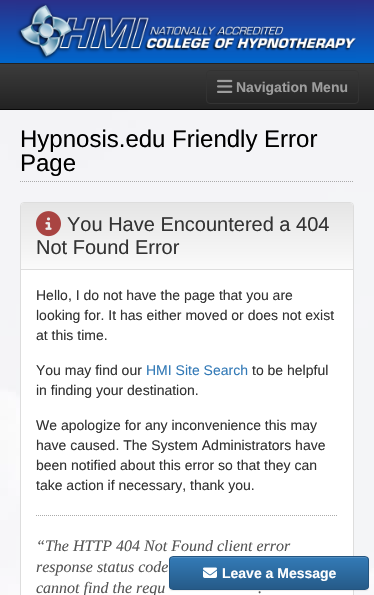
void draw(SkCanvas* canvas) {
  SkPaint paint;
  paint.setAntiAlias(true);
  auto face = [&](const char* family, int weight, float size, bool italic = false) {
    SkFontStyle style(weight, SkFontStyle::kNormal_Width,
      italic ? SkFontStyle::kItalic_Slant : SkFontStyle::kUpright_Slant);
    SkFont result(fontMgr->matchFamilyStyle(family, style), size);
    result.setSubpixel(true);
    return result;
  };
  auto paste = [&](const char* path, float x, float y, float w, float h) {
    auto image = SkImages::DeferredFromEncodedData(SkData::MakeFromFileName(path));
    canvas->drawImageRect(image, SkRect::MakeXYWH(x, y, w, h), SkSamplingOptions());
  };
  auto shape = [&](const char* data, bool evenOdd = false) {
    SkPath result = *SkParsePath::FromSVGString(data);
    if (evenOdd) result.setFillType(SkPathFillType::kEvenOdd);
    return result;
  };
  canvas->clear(0xffffffff);
  paste("img/1.png", 0, 110, 374, 485);
  {
    const SkColor colors[] = {0xff2a3089, 0xff0066cc};
    const float stops[] = {0, 1};
    const SkPoint ends[] = {{187, 0}, {187, 63}};
    paint.setShader(SkGradientShader::MakeLinear(ends, colors, stops, 2, SkTileMode::kClamp));
    paint.setAlpha(255);
  }
  canvas->drawRect(SkRect::MakeXYWH(0, 0, 374, 63), paint);
  paint.setShader(nullptr);
  paint.setColor(0xff222222);
  canvas->drawRect(SkRect::MakeXYWH(0, 63, 374, 1), paint);
  paste("img/2.png", 16, 3, 340, 57);
  {
    const SkColor colors[] = {0xff3c3c3c, 0xff222222};
    const float stops[] = {0, 1};
    const SkPoint ends[] = {{187, 64}, {187, 109}};
    paint.setShader(SkGradientShader::MakeLinear(ends, colors, stops, 2, SkTileMode::kClamp));
    paint.setAlpha(255);
  }
  canvas->drawRect(SkRect::MakeXYWH(0, 64, 374, 45), paint);
  paint.setShader(nullptr);
  paint.setColor(0xff080808);
  canvas->drawRect(SkRect::MakeXYWH(0, 109, 374, 1), paint);
  paint.setStroke(true);
  paint.setStrokeWidth(1);
  paint.setColor(0xff333333);
  canvas->drawRoundRect(SkRect::MakeXYWH(206.5f, 70.5f, 152, 33), 3.5f, 3.5f, paint);
  paste("img/3.png", 217, 79, 16, 14);
  paint.setStroke(false);
  paint.setColor(0x80ffffff);
  canvas->drawRect(SkRect::MakeXYWH(0, 110, 374, 485), paint);
  paint.setStroke(true);
  paint.setColor(0xffaaaaaa);
  paint.setPathEffect(SkDashPathEffect::Make({{1, 1}}, 0));
  canvas->drawPath(shape("M20 181.5H354"), paint);
  paint.setPathEffect(nullptr);
  paint.setStroke(false);
  paint.setColor(0xffffffff);
  canvas->drawRoundRect(SkRect::MakeXYWH(20.5f, 202.5f, 333, 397), 3.5f, 3.5f, paint);
  paint.setStroke(true);
  paint.setColor(0xffdddddd);
  canvas->drawRoundRect(SkRect::MakeXYWH(20.5f, 202.5f, 333, 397), 3.5f, 3.5f, paint);
  paint.setStroke(false);
  {
    const SkColor colors[] = {0xffe5e5e5, 0xfffafafa};
    const float stops[] = {0, 1};
    const SkPoint ends[] = {{187, 203}, {187, 269}};
    paint.setShader(SkGradientShader::MakeLinear(ends, colors, stops, 2, SkTileMode::kClamp));
    paint.setAlpha(255);
  }
  canvas->drawPath(shape("M24 203H350C351.5 203 353 204.5 353 206V269H21V206C21 204.5 22.5 203 24 203Z"), paint);
  paint.setShader(nullptr);
  paint.setColor(0xffdddddd);
  canvas->drawRect(SkRect::MakeXYWH(21, 269, 332, 1), paint);
  paste("img/4.png", 36, 211, 25, 26);
  paint.setStroke(true);
  paint.setColor(0xffaaaaaa);
  paint.setPathEffect(SkDashPathEffect::Make({{1, 1}}, 0));
  canvas->drawPath(shape("M36 515.5H338"), paint);
  paint.setPathEffect(nullptr);
  paint.setStroke(false);
  paint.setColor(0x12000000);
  paint.setMaskFilter(SkMaskFilter::MakeBlur(kNormal_SkBlurStyle, 0.5f));
  canvas->drawRoundRect(SkRect::MakeXYWH(169, 557, 200, 34), 4, 4, paint);
  paint.setMaskFilter(nullptr);
  canvas->save();
  canvas->clipPath(shape("M173 556H365C367 556 369 558 369 560V586C369 588 367 590 365 590H173C171 590 169 588 169 586V560C169 558 171 556 173 556Z"), true);
  {
    const SkColor colors[] = {0xff337ab7, 0xff265a88};
    const float stops[] = {0, 1};
    const SkPoint ends[] = {{269, 557}, {269, 589}};
    paint.setShader(SkGradientShader::MakeLinear(ends, colors, stops, 2, SkTileMode::kClamp));
    paint.setAlpha(255);
  }
  canvas->drawRect(SkRect::MakeXYWH(169, 557, 200, 32), paint);
  canvas->restore();
  paint.setShader(nullptr);
  paint.setColor(0xff528ec1);
  canvas->drawPath(shape("M173 558H365C367 558 368 559 368 561C368 559 367 557 365 557H173C171 557 170 559 170 561C170 559 171 558 173 558Z"), paint);
  paint.setStroke(true);
  paint.setColor(0xff245580);
  canvas->drawRoundRect(SkRect::MakeXYWH(169.5f, 556.5f, 199, 33), 3.5f, 3.5f, paint);
  paste("img/5.png", 203, 567, 14, 11);
  auto f0 = face("Liberation Sans", 700, 14);
  paint.setStroke(false);
  paint.setColor(0xff9d9d9d);
  canvas->drawString("Navigation Menu", 236, 92, f0, paint);
  auto f1 = face("Liberation Sans", 400, 24);
  paint.setColor(0xff000000);
  canvas->drawString("Hypnosis.edu Friendly Error", 20, 147, f1, paint);
  canvas->drawString("Page", 20, 171, f1, paint);
  auto f2 = face("Liberation Sans", 400, 20);
  paint.setColor(0xff333333);
  canvas->drawString("You Have Encountered a 404", 67, 231, f2, paint);
  canvas->drawString("Not Found Error", 36, 254, f2, paint);
  auto f3 = face("Liberation Sans", 400, 14);
  {
    const struct { const char* s; float x, y; } items[] = {
      {"Hello, I do not have the page that you are", 36, 300},
      {"looking for. It has either moved or does not exist", 36, 320},
      {"at this time.", 36, 340},
      {"You may find our", 36, 375},
    };
    for (auto [s, x, y] : items) {
      canvas->drawString(s, x, y, f3, paint);
    }
  }
  paint.setColor(0xff337ab7);
  canvas->drawString("HMI Site Search", 146, 375, f3, paint);
  paint.setColor(0xff333333);
  {
    const struct { const char* s; float x, y; } items[] = {
      {"to be helpful", 252, 375},
      {"in finding your destination.", 36, 395},
      {"We apologize for any inconvenience this may", 36, 430},
      {"have caused. The System Administrators have", 36, 450},
      {"been notified about this error so that they can", 36, 470},
      {"take action if necessary, thank you.", 36, 490},
    };
    for (auto [s, x, y] : items) {
      canvas->drawString(s, x, y, f3, paint);
    }
  }
  auto f4 = face("Liberation Serif", 400, 16, true);
  paint.setColor(0xff555555);
  {
    const struct { const char* s; float x, y; } items[] = {
      {"“The HTTP 404 Not Found client error", 36, 551},
      {"response status code", 36, 572},
      {"cannot find the requ", 36, 593},
      {".", 258, 593},
    };
    for (auto [s, x, y] : items) {
      canvas->drawString(s, x, y, f4, paint);
    }
  }
  paint.setColor(0xffffffff);
  canvas->drawString("Leave a Message", 222, 578, f0, paint);
}
